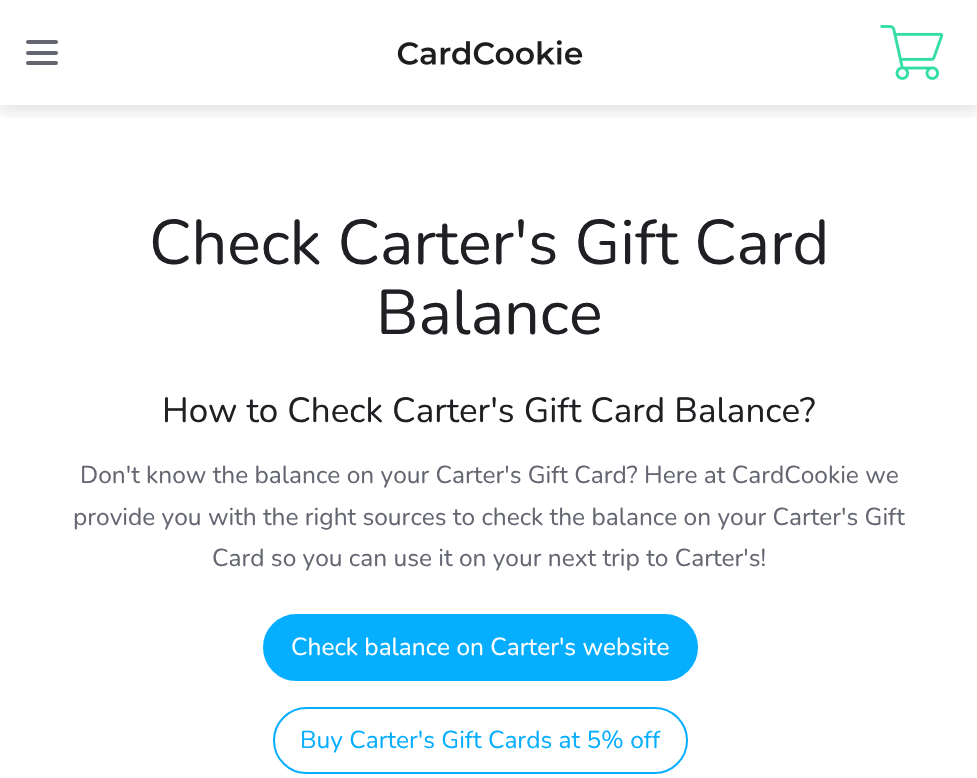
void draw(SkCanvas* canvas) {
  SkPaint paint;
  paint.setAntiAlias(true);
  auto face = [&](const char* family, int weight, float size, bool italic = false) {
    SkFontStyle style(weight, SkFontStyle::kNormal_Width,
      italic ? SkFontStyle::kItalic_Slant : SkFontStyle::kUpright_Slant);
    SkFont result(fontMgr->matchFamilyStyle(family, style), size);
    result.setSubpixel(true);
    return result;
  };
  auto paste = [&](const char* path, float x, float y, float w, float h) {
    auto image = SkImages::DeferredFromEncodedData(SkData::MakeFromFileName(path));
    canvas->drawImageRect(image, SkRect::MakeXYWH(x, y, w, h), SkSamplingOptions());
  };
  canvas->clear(0xffffffff);
  canvas->save();
  canvas->clipRect(SkRect::MakeXYWH(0, 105, 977, 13));
  paint.setColor(0x1a000000);
  paint.setMaskFilter(SkMaskFilter::MakeBlur(kNormal_SkBlurStyle, 7));
  canvas->drawRect(SkRect::MakeXYWH(0, 7, 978, 105), paint);
  paint.setMaskFilter(nullptr);
  canvas->restore();
  paint.setColor(0xff646772);
  canvas->drawRoundRect(SkRect::MakeXYWH(26, 40, 32, 4), 2, 2, paint);
  canvas->drawRoundRect(SkRect::MakeXYWH(26, 51, 32, 4), 2, 2, paint);
  canvas->drawRoundRect(SkRect::MakeXYWH(26, 61, 32, 4), 2, 2, paint);
  paste("img/1.png", 397, 40, 186, 25);
  paste("img/2.png", 880, 25, 63, 55);
  paint.setColor(0xff06aeff);
  canvas->drawRoundRect(SkRect::MakeXYWH(264, 615, 433, 65), 32.5f, 32.5f, paint);
  paint.setStroke(true);
  paint.setStrokeWidth(2);
  canvas->drawRoundRect(SkRect::MakeXYWH(264, 615, 433, 65), 32.5f, 32.5f, paint);
  canvas->drawRoundRect(SkRect::MakeXYWH(274, 708, 413, 65), 32.5f, 32.5f, paint);
  auto f0 = face("Nunito", 400, 63);
  paint.setStroke(false);
  paint.setColor(0xff1f2023);
  canvas->drawString("Check Carter's Gift Card", 149, 264, f0, paint);
  canvas->drawString("Balance", 376, 334, f0, paint);
  auto f1 = face("Nunito", 400, 35);
  canvas->drawString("How to Check Carter's Gift Card Balance?", 162, 422, f1, paint);
  auto f2 = face("Nunito", 400, 24.5f);
  paint.setColor(0xff646772);
  {
    const struct { const char* s; float x, y; } items[] = {
      {"Don't know the balance on your Carter's Gift Card? Here at CardCookie we", 80, 483},
      {"provide you with the right sources to check the balance on your Carter's Gift", 73, 525},
      {"Card so you can use it on your next trip to Carter's!", 212, 566},
    };
    for (auto [s, x, y] : items) {
      canvas->drawString(s, x, y, f2, paint);
    }
  }
  paint.setColor(0xffffffff);
  canvas->drawString("Check balance on Carter's website", 291, 655, f2, paint);
  paint.setColor(0xff06aeff);
  canvas->drawString("Buy Carter's Gift Cards at 5% off", 300, 748, f2, paint);
}
